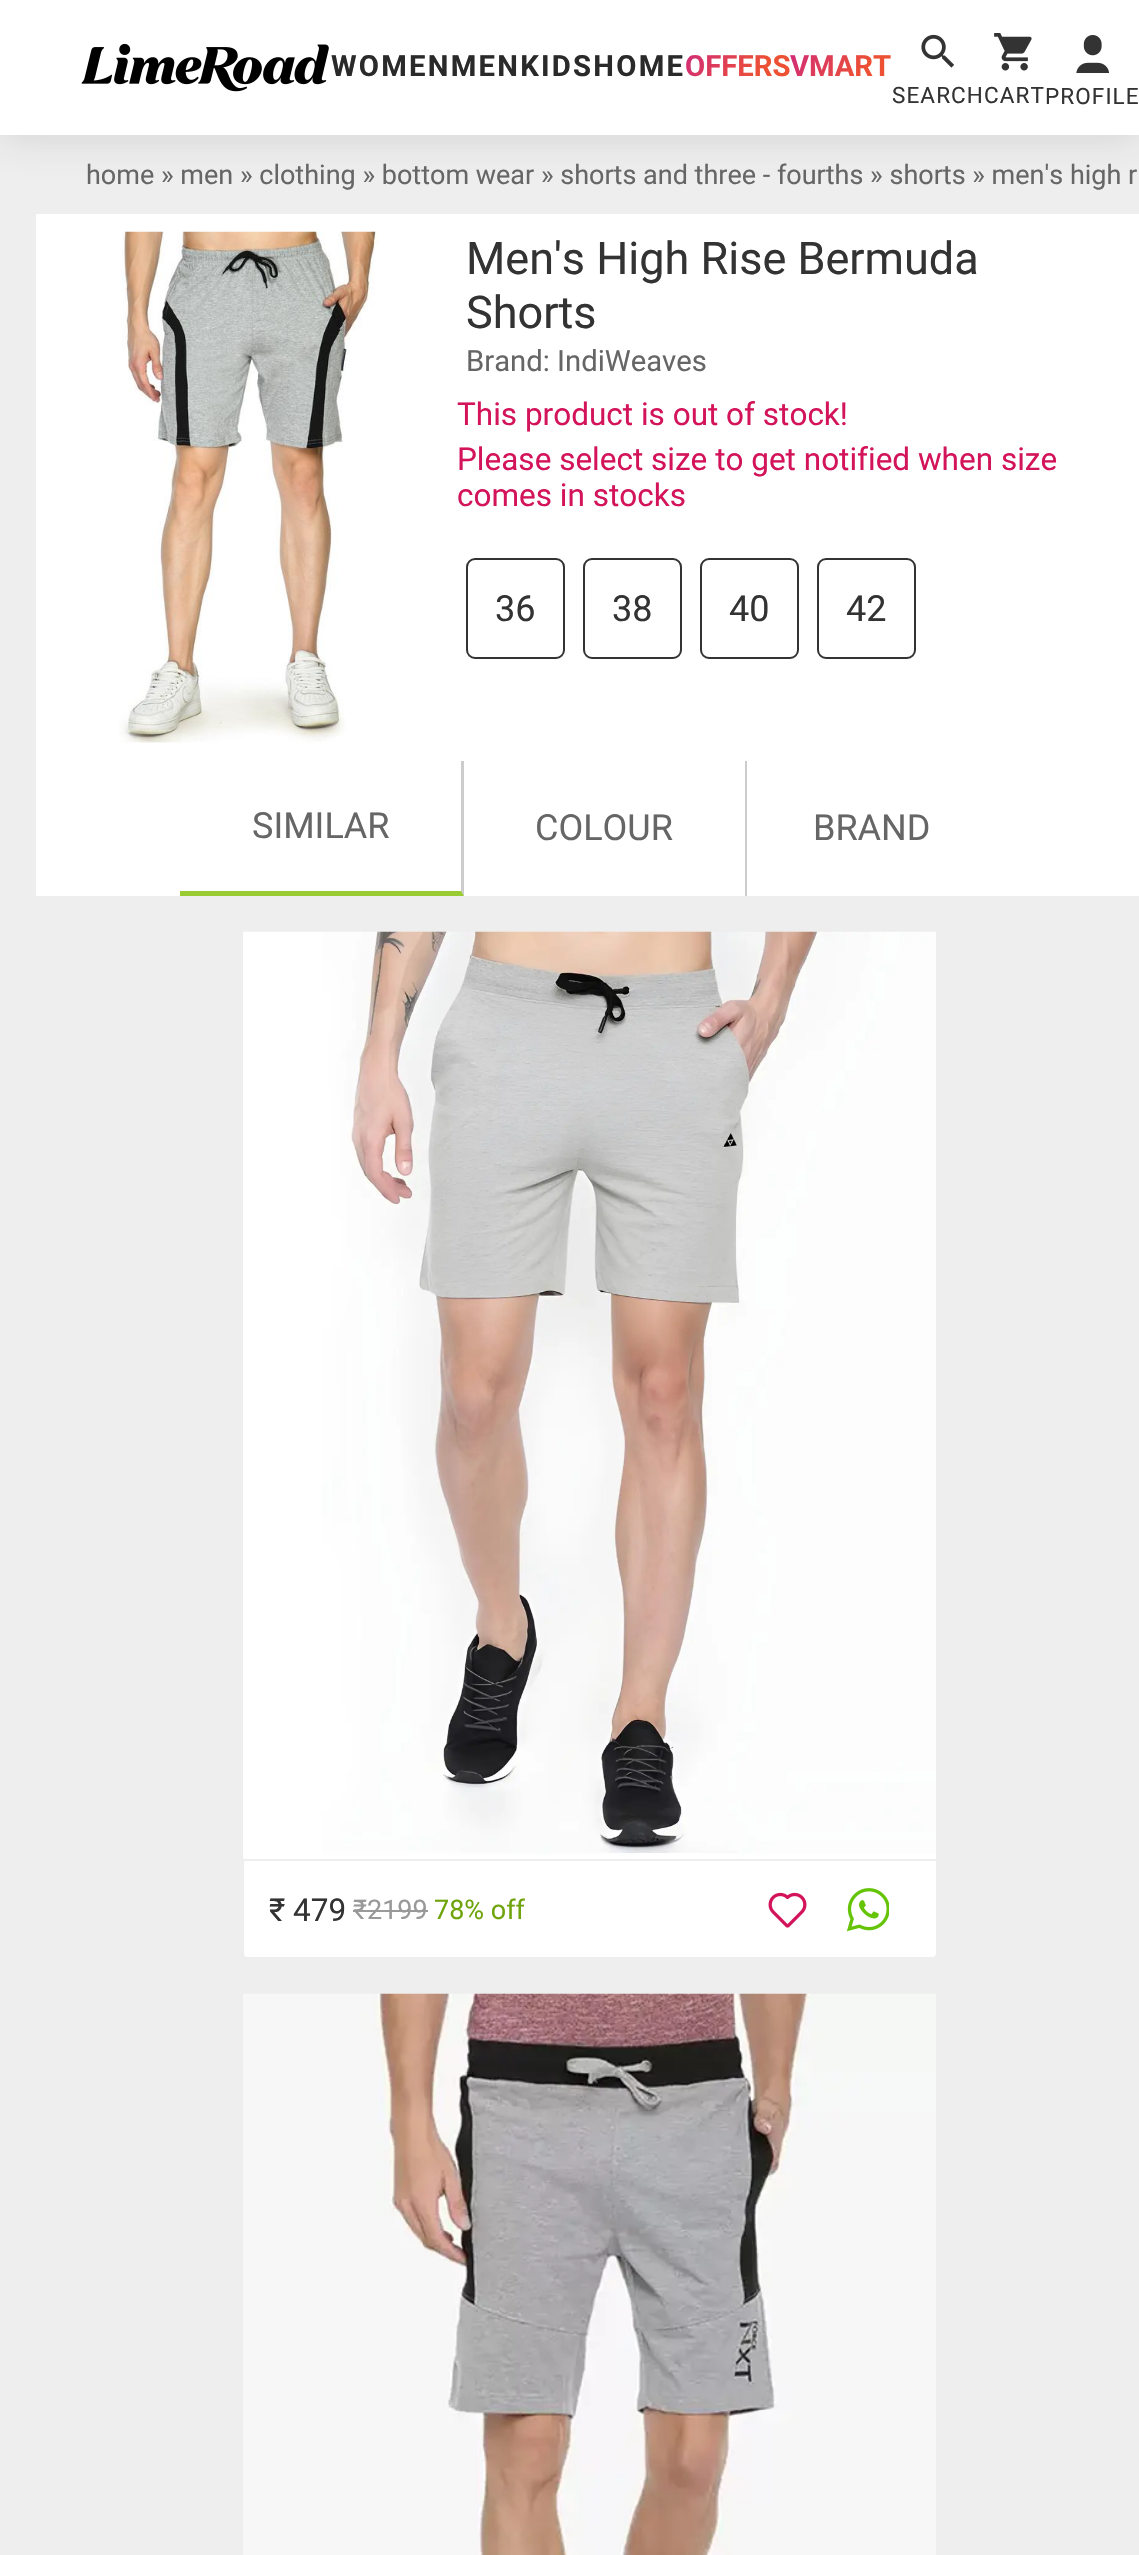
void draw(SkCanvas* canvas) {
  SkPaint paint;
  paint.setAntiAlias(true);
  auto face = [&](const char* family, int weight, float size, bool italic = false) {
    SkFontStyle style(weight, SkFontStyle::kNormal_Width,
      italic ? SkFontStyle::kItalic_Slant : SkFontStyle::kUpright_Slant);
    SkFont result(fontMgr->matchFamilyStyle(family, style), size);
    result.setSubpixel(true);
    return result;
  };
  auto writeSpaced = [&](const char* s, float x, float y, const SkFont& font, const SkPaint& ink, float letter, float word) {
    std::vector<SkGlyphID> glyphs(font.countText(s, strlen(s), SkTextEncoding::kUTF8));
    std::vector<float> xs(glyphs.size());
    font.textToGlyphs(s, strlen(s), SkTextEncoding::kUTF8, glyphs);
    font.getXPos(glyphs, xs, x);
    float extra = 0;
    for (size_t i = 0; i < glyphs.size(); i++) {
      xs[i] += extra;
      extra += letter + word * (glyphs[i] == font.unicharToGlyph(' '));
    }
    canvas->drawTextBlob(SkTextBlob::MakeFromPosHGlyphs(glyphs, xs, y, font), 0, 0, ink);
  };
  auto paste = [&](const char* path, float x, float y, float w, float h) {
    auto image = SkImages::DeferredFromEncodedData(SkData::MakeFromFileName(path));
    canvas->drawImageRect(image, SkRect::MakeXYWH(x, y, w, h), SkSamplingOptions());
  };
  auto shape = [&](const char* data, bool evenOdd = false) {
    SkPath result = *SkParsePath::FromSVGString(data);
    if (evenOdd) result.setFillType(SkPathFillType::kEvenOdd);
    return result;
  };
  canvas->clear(0xffeeeeee);
  paint.setColor(0x29555555);
  paint.setMaskFilter(SkMaskFilter::MakeBlur(kNormal_SkBlurStyle, 18));
  canvas->drawRect(SkRect::MakeXYWH(0, 5, 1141, 135), paint);
  paint.setMaskFilter(nullptr);
  paint.setColor(0xffffffff);
  canvas->drawRect(SkRect::MakeXYWH(0, 0, 1139, 135), paint);
  paste("img/1.png", 81, 43, 248, 49);
  paste("img/2.png", 994, 33, 38, 38);
  paste("img/3.png", 921, 34, 34, 34);
  paste("img/4.png", 1076, 35, 34, 38);
  canvas->drawRect(SkRect::MakeXYWH(36, 214, 1103, 682), paint);
  paste("img/5.png", 119, 231, 260, 512);
  paint.setStroke(true);
  paint.setStrokeWidth(2);
  paint.setColor(0xff333333);
  canvas->drawRoundRect(SkRect::MakeXYWH(467, 559, 97, 99), 8, 8, paint);
  canvas->drawRoundRect(SkRect::MakeXYWH(584, 559, 97, 99), 8, 8, paint);
  canvas->drawRoundRect(SkRect::MakeXYWH(701, 559, 97, 99), 8, 8, paint);
  canvas->drawRoundRect(SkRect::MakeXYWH(818, 559, 97, 99), 8, 8, paint);
  canvas->save();
  canvas->clipRect(SkRect::MakeXYWH(36, 761, 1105, 135));
  paint.setStroke(false);
  paint.setColor(0xffcccccc);
  canvas->drawPath(shape("M464 760V896L461 891V760Z"), paint);
  canvas->restore();
  paint.setColor(0xff99cc33);
  canvas->drawPath(shape("M464 896H180V891H461Z"), paint);
  paint.setColor(0xffcccccc);
  canvas->drawRect(SkRect::MakeXYWH(745, 761, 2, 135), paint);
  paint.setColor(0xffffffff);
  canvas->drawRoundRect(SkRect::MakeXYWH(241.5f, 929.5f, 697, 1030), 6.5f, 6.5f, paint);
  paint.setStroke(true);
  paint.setStrokeWidth(5);
  paint.setColor(0xffeeeeee);
  canvas->drawRoundRect(SkRect::MakeXYWH(241.5f, 929.5f, 697, 1030), 6.5f, 6.5f, paint);
  paste("img/6.png", 243, 931, 693, 928);
  paint.setStroke(false);
  canvas->drawRect(SkRect::MakeXYWH(243, 1859, 693, 2), paint);
  paint.setColor(0xff999999);
  canvas->drawRect(SkRect::MakeXYWH(353, 1910, 75, 2), paint);
  paste("img/7.png", 768, 1892, 39, 36);
  paste("img/8.png", 846, 1888, 43, 44);
  paste("img/9.png", 243, 1993, 693, 562);
  auto f0 = face("Roboto", 700, 29.25f);
  paint.setColor(0xff2a2a2a);
  writeSpaced("WOMENMENKIDSHOME", 331, 76, f0, paint, 2.25f, 0);
  {
    const SkColor colors[] = {0xffce297e, 0xffed5133};
    const float stops[] = {0, 0.73f};
    const SkPoint ends[] = {{689, 34}, {783, 95}};
    paint.setShader(SkGradientShader::MakeLinear(ends, colors, stops, 2, SkTileMode::kClamp));
    paint.setAlpha(255);
  }
  canvas->drawString("OFFERS", 685, 76, f0, paint);
  {
    const SkColor colors[] = {0xffce297e, 0xffed5133};
    const float stops[] = {0, 0.73f};
    const SkPoint ends[] = {{794, 35}, {885, 94}};
    paint.setShader(SkGradientShader::MakeLinear(ends, colors, stops, 2, SkTileMode::kClamp));
    paint.setAlpha(255);
  }
  canvas->drawString("VMART", 790, 76, f0, paint);
  auto f1 = face("Roboto", 400, 22.5f);
  paint.setShader(nullptr);
  paint.setColor(0xff333333);
  writeSpaced("SEARCHCART", 892, 103, f1, paint, 1.1f, 0);
  writeSpaced("PROFILE", 1045, 104, f1, paint, 1.1f, 0);
  auto f2 = face("Roboto", 400, 27);
  paint.setColor(0xff666666);
  canvas->drawString("home » men » clothing » bottom wear » shorts and three - fourths » shorts » men's high r", 86, 184, f2, paint);
  auto f3 = face("Roboto", 400, 45);
  paint.setColor(0xff333333);
  canvas->drawString("Men's High Rise Bermuda", 466, 274, f3, paint);
  canvas->drawString("Shorts", 466, 328, f3, paint);
  auto f4 = face("Roboto", 400, 29.25f);
  paint.setColor(0xff666666);
  canvas->drawString("Brand: IndiWeaves", 466, 371, f4, paint);
  auto f5 = face("Roboto", 400, 31.5f);
  paint.setColor(0xffd3145a);
  {
    const struct { const char* s; float x, y; } items[] = {
      {"This product is out of stock!", 457, 425},
      {"Please select size to get notified when size", 457, 470},
      {"comes in stocks", 457, 506},
    };
    for (auto [s, x, y] : items) {
      canvas->drawString(s, x, y, f5, paint);
    }
  }
  auto f6 = face("Roboto", 400, 36);
  paint.setColor(0xff333333);
  {
    const struct { const char* s; float x, y; } items[] = {
      {"36", 495, 621},
      {"38", 612, 621},
      {"40", 729, 621},
      {"42", 846, 621},
    };
    for (auto [s, x, y] : items) {
      canvas->drawString(s, x, y, f6, paint);
    }
  }
  paint.setColor(0xff666666);
  {
    const struct { const char* s; float x, y; } items[] = {
      {"SIMILAR", 252, 838},
      {"COLOUR", 535, 840},
      {"BRAND", 813, 840},
    };
    for (auto [s, x, y] : items) {
      canvas->drawString(s, x, y, f6, paint);
    }
  }
  paint.setColor(0xff333333);
  canvas->drawString("₹ 479", 269, 1921, f5, paint);
  paint.setColor(0xff999999);
  canvas->drawString("₹2199", 353, 1919, f2, paint);
  paint.setColor(0xff6fa40c);
  canvas->drawString("78% off", 434, 1919, f2, paint);
}
